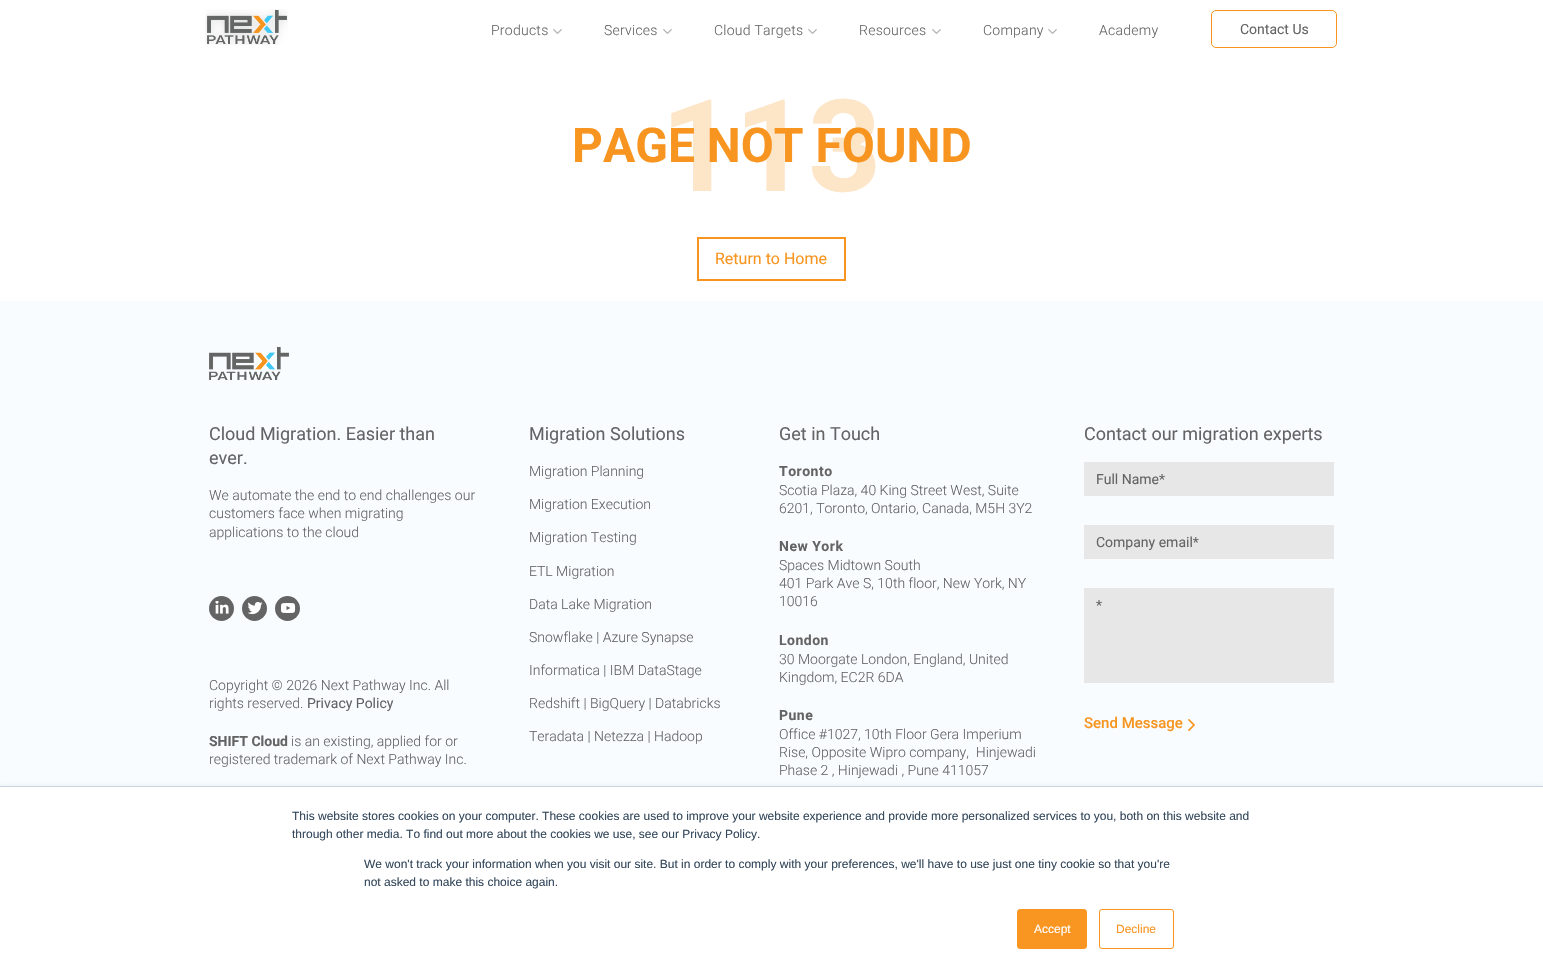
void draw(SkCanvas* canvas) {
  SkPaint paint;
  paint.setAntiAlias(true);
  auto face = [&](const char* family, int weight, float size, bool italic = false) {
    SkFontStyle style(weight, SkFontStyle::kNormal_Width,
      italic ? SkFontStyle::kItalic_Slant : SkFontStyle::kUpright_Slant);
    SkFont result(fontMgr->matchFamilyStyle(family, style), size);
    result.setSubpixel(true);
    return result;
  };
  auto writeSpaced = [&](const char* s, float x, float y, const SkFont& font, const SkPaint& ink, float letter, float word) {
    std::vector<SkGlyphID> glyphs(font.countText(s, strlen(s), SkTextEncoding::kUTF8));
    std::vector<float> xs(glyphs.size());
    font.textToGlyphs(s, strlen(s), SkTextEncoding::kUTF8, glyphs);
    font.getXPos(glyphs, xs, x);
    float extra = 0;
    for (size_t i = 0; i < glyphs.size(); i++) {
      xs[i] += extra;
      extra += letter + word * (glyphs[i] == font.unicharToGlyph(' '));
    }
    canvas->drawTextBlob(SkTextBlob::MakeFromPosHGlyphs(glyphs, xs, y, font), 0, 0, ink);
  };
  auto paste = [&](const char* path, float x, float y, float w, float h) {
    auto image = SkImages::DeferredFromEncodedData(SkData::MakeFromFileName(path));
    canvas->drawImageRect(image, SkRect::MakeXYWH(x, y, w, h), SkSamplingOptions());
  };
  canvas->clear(0xffffffff);
  paste("img/1.png", 205, 9, 83, 36);
  paste("img/2.png", 553, 29, 9, 5);
  paste("img/2.png", 663, 29, 9, 5);
  paste("img/2.png", 808, 29, 9, 5);
  paste("img/2.png", 932, 29, 9, 5);
  paste("img/2.png", 1048, 29, 9, 5);
  paint.setStroke(true);
  paint.setStrokeWidth(1);
  paint.setColor(0xfff79520);
  canvas->drawRoundRect(SkRect::MakeXYWH(1211.5f, 10.5f, 125, 37), 4.5f, 4.5f, paint);
  paint.setStrokeWidth(2);
  canvas->drawRect(SkRect::MakeXYWH(698, 238, 147, 42), paint);
  paint.setStroke(false);
  paint.setColor(0xfff8fcff);
  canvas->drawRect(SkRect::MakeXYWH(0, 301, 1543, 485), paint);
  paste("img/3.png", 209, 347, 80, 33);
  paint.setColor(0xff646464);
  canvas->drawCircle(221.5f, 608.5f, 12.5f, paint);
  paste("img/4.png", 215, 601, 14, 13);
  canvas->drawCircle(254.5f, 608.5f, 12.5f, paint);
  paste("img/5.png", 248, 601, 15, 14);
  canvas->drawCircle(287.5f, 608.5f, 12.5f, paint);
  paste("img/6.png", 281, 603, 15, 10);
  {
    const struct { float x, y, w, h; SkColor color; } items[] = {
      {1084, 462, 250, 34, 0xffe7e7e8},
      {1084, 525, 250, 34, 0xffe7e7e8},
      {1084, 588, 250, 95, 0xffe7e7e8},
    };
    for (auto [x, y, w, h, color] : items) {
      paint.setColor(color);
      canvas->drawRect(SkRect::MakeXYWH(x, y, w, h), paint);
    }
  }
  paste("img/7.png", 1188, 719, 7, 12);
  paint.setColor(0xffeaf0f6);
  paint.setMaskFilter(SkMaskFilter::MakeBlur(kNormal_SkBlurStyle, 1.5f));
  canvas->drawRect(SkRect::MakeXYWH(0, 785, 1543, 189), paint);
  paint.setMaskFilter(nullptr);
  paint.setColor(0xffffffff);
  canvas->drawRect(SkRect::MakeXYWH(0, 787, 1543, 188), paint);
  paint.setColor(0xffcbd6e2);
  canvas->drawRect(SkRect::MakeXYWH(0, 786, 1543, 1), paint);
  paint.setColor(0xfff89621);
  canvas->drawRoundRect(SkRect::MakeXYWH(1017.5f, 909.5f, 69, 39), 2.5f, 2.5f, paint);
  paint.setStroke(true);
  paint.setStrokeWidth(1);
  canvas->drawRoundRect(SkRect::MakeXYWH(1017.5f, 909.5f, 69, 39), 2.5f, 2.5f, paint);
  canvas->drawRoundRect(SkRect::MakeXYWH(1099.5f, 909.5f, 74, 39), 2.5f, 2.5f, paint);
  auto f0 = face("Roboto", 300, 14);
  paint.setStroke(false);
  paint.setColor(0xff646464);
  {
    const struct { const char* s; float x, y; } items[] = {
      {"Products", 491, 35},
      {"Services", 604, 35},
      {"Cloud Targets", 714, 35},
      {"Resources", 859, 35},
      {"Company", 983, 35},
      {"Academy", 1099, 35},
    };
    for (auto [s, x, y] : items) {
      writeSpaced(s, x, y, f0, paint, 0.25f, 0);
    }
  }
  auto f1 = face("Roboto", 400, 14);
  canvas->drawString("Contact Us", 1240, 34, f1, paint);
  auto f2 = face("Roboto", 700, 128);
  paint.setColor(0xfffde5c7);
  canvas->drawString("113", 661, 191, f2, paint);
  auto f3 = face("Roboto", 700, 48);
  paint.setColor(0xfff79520);
  canvas->drawString("PAGE NOT FOUND", 572, 162, f3, paint);
  auto f4 = face("Roboto", 400, 16);
  canvas->drawString("Return to Home", 715, 264, f4, paint);
  auto f5 = face("Roboto", 400, 18);
  paint.setColor(0xff646464);
  canvas->drawString("Cloud Migration. Easier than", 209, 440, f5, paint);
  canvas->drawString("ever.", 209, 464, f5, paint);
  {
    const struct { const char* s; float x, y; } items[] = {
      {"We automate the end to end challenges our", 209, 500},
      {"customers face when migrating", 209, 518},
      {"applications to the cloud", 209, 537},
      {"Copyright © 2026 Next Pathway Inc. All", 209, 690},
      {"rights reserved.", 209, 708},
    };
    for (auto [s, x, y] : items) {
      canvas->drawString(s, x, y, f0, paint);
    }
  }
  canvas->drawString("Privacy Policy", 307, 708, f1, paint);
  auto f6 = face("Roboto", 700, 14);
  canvas->drawString("SHIFT Cloud", 209, 746, f6, paint);
  canvas->drawString("is an existing, applied for or", 291, 746, f0, paint);
  canvas->drawString("registered trademark of Next Pathway Inc.", 209, 764, f0, paint);
  canvas->drawString("Migration Solutions", 529, 440, f5, paint);
  {
    const struct { const char* s; float x, y; } items[] = {
      {"Migration Planning", 529, 476},
      {"Migration Execution", 529, 509},
      {"Migration Testing", 529, 542},
      {"ETL Migration", 529, 576},
      {"Data Lake Migration", 529, 609},
      {"Snowflake | Azure Synapse", 529, 642},
      {"Informatica | IBM DataStage", 529, 675},
      {"Redshift | BigQuery | Databricks", 529, 708},
      {"Teradata | Netezza | Hadoop", 529, 741},
    };
    for (auto [s, x, y] : items) {
      canvas->drawString(s, x, y, f0, paint);
    }
  }
  canvas->drawString("Get in Touch", 779, 440, f5, paint);
  writeSpaced("Toronto", 779, 476, f6, paint, 0.5f, 0);
  canvas->drawString("Scotia Plaza, 40 King Street West, Suite", 779, 495, f0, paint);
  canvas->drawString("6201, Toronto, Ontario, Canada, M5H 3Y2", 779, 513, f0, paint);
  writeSpaced("New York", 779, 551, f6, paint, 0.5f, 0);
  {
    const struct { const char* s; float x, y; } items[] = {
      {"Spaces Midtown South", 779, 570},
      {"401 Park Ave S, 10th floor, New York, NY", 779, 588},
      {"10016", 779, 606},
    };
    for (auto [s, x, y] : items) {
      canvas->drawString(s, x, y, f0, paint);
    }
  }
  writeSpaced("London", 779, 645, f6, paint, 0.5f, 0);
  canvas->drawString("30 Moorgate London, England, United", 779, 664, f0, paint);
  canvas->drawString("Kingdom, EC2R 6DA", 779, 682, f0, paint);
  writeSpaced("Pune", 779, 720, f6, paint, 0.5f, 0);
  {
    const struct { const char* s; float x, y; } items[] = {
      {"Office #1027, 10th Floor Gera Imperium", 779, 739},
      {"Rise, Opposite Wipro company,  Hinjewadi", 779, 757},
      {"Phase 2 , Hinjewadi , Pune 411057", 779, 775},
    };
    for (auto [s, x, y] : items) {
      canvas->drawString(s, x, y, f0, paint);
    }
  }
  canvas->drawString("Contact our migration experts", 1084, 440, f5, paint);
  {
    const struct { const char* s; float x, y; } items[] = {
      {"Full Name*", 1096, 484},
      {"Company email*", 1096, 547},
      {"*", 1096, 610},
    };
    for (auto [s, x, y] : items) {
      canvas->drawString(s, x, y, f1, paint);
    }
  }
  auto f7 = face("Roboto", 500, 15);
  paint.setColor(0xfff79520);
  canvas->drawString("Send Message", 1084, 728, f7, paint);
  auto f8 = face("Liberation Sans", 400, 12);
  paint.setColor(0xff33475b);
  {
    const struct { const char* s; float x, y; } items[] = {
      {"This website stores cookies on your computer. These cookies are used to improve your website experience and provide more personalized services to you, both on this website and", 292, 820},
      {"through other media. To find out more about the cookies we use, see our Privacy Policy.", 292, 838},
      {"We won't track your information when you visit our site. But in order to comply with your preferences, we'll have to use just one tiny cookie so that you're", 364, 868},
      {"not asked to make this choice again.", 364, 886},
    };
    for (auto [s, x, y] : items) {
      canvas->drawString(s, x, y, f8, paint);
    }
  }
  paint.setColor(0xffffffff);
  canvas->drawString("Accept", 1034, 933, f8, paint);
  paint.setColor(0xfff79520);
  canvas->drawString("Decline", 1116, 933, f8, paint);
}
